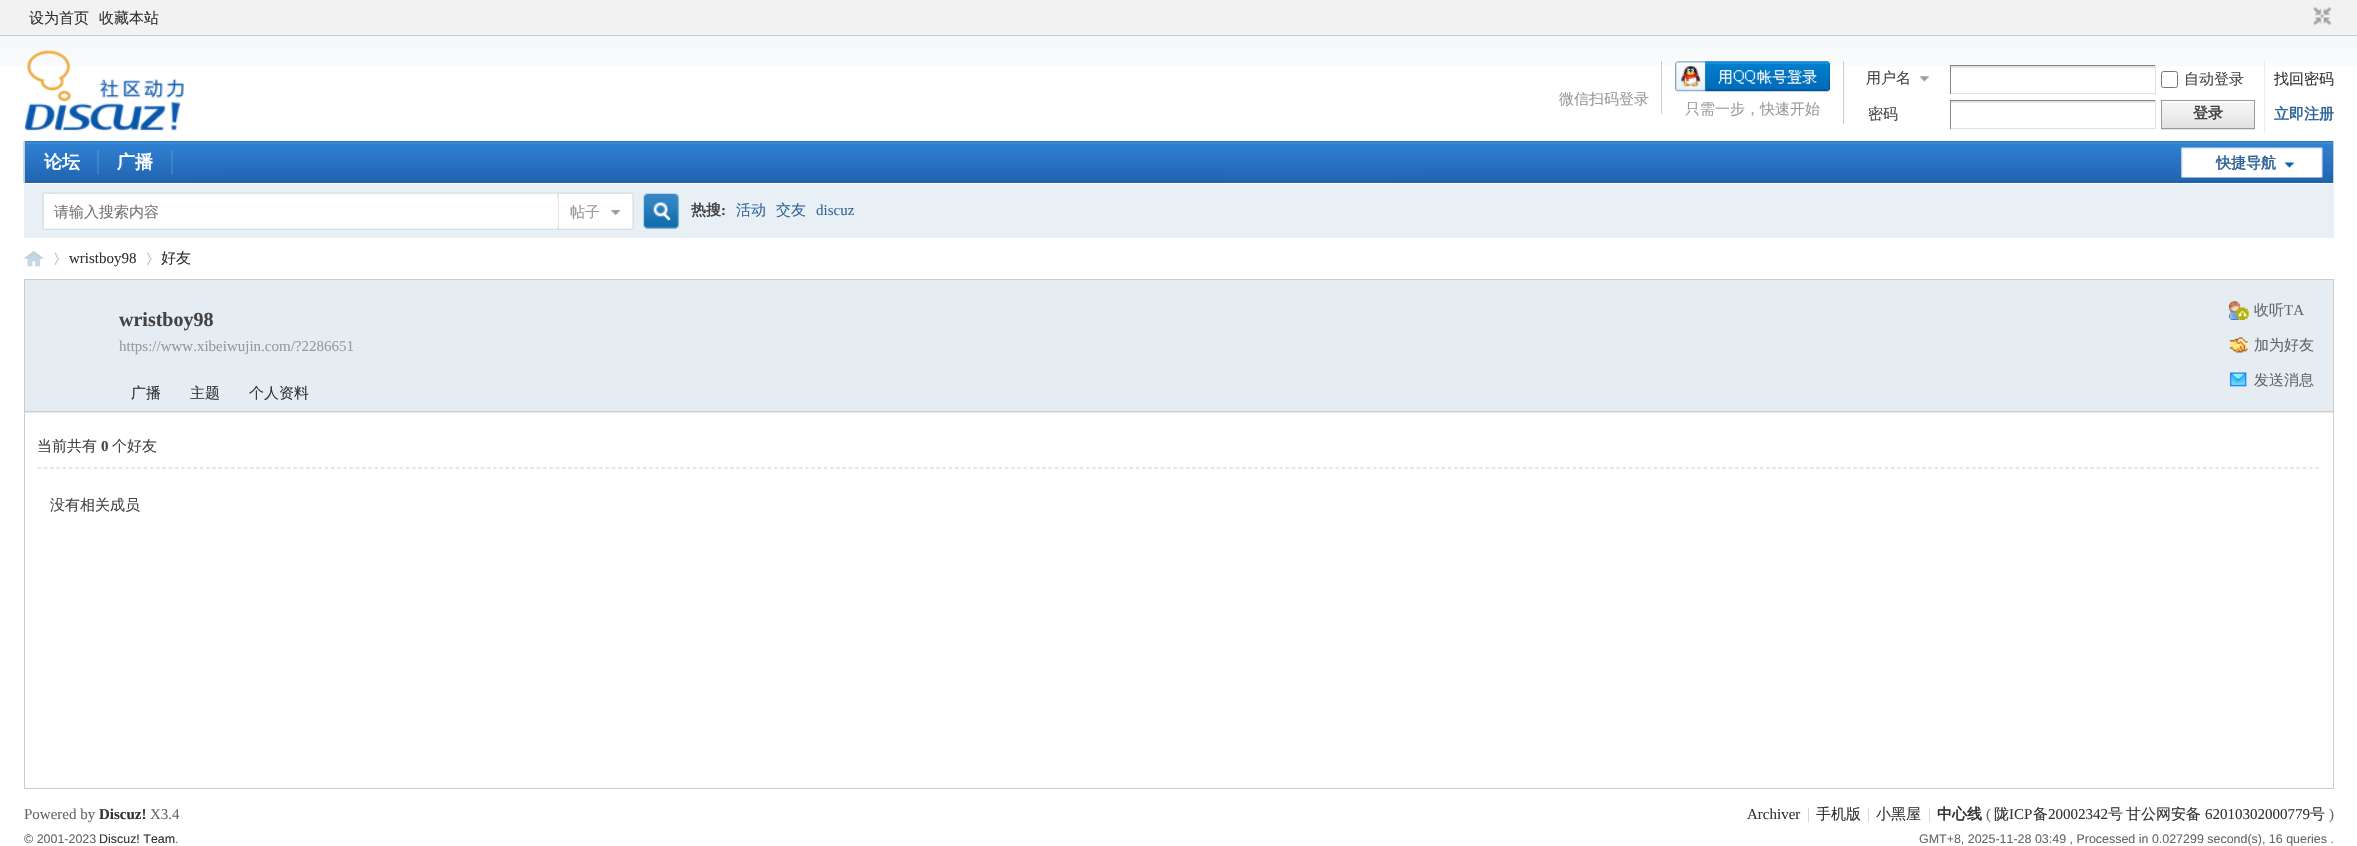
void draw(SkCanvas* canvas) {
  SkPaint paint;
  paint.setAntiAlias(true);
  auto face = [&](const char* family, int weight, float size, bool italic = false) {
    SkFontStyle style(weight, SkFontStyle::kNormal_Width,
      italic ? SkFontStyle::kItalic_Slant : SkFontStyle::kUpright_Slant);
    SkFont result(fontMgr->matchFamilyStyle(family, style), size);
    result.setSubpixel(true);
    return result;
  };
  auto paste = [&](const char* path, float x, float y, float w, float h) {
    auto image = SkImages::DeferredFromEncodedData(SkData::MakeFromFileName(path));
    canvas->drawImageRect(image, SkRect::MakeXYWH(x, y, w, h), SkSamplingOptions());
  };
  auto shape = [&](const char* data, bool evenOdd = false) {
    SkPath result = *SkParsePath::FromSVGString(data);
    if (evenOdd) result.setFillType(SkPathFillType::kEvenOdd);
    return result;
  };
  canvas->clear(0xffffffff);
  paste("img/1.png", 0, 36, 2357, 31);
  paint.setColor(0xfff2f2f2);
  canvas->drawRect(SkRect::MakeXYWH(0, 0, 2357, 35), paint);
  paint.setColor(0xffcdcdcd);
  canvas->drawRect(SkRect::MakeXYWH(0, 35, 2357, 1), paint);
  paste("img/2.png", 2313, 7, 19, 19);
  paste("img/3.png", 24, 49, 160, 82);
  canvas->drawRect(SkRect::MakeXYWH(1661, 61, 1, 53), paint);
  paste("img/4.png", 1920, 76, 9, 6);
  paint.setColor(0xffffffff);
  canvas->drawRect(SkRect::MakeXYWH(1951, 66, 204, 1), paint);
  paste("img/5.png", 1951, 66, 206, 2);
  {
    const struct { float x, y, w, h; SkColor color; } items[] = {
      {1950, 65, 206, 1, 0xff848484},
      {2155, 65, 1, 29, 0xffe0e0e0},
      {1950, 93, 206, 1, 0xffe0e0e0},
      {1950, 65, 1, 29, 0xff848484},
    };
    for (auto [x, y, w, h, color] : items) {
      paint.setColor(color);
      canvas->drawRect(SkRect::MakeXYWH(x, y, w, h), paint);
    }
  }
  paint.setStroke(true);
  paint.setStrokeWidth(1);
  paint.setColor(0xff767676);
  canvas->drawRoundRect(SkRect::MakeXYWH(2161.5f, 71.5f, 16, 16), 2, 2, paint);
  paste("img/6.png", 1951, 101, 206, 2);
  paint.setStroke(false);
  {
    const struct { float x, y, w, h; SkColor color; } items[] = {
      {1950, 100, 206, 1, 0xff848484},
      {2155, 100, 1, 29, 0xffe0e0e0},
      {1950, 128, 206, 1, 0xffe0e0e0},
      {1950, 100, 1, 29, 0xff848484},
      {2264, 61, 1, 72, 0xffe5edf2},
    };
    for (auto [x, y, w, h, color] : items) {
      paint.setColor(color);
      canvas->drawRect(SkRect::MakeXYWH(x, y, w, h), paint);
    }
  }
  paint.setColor(0xffe5e5e5);
  canvas->drawPath(shape("M2161 101V130H2255V129H2161Z"), paint);
  paste("img/7.png", 2162, 101, 92, 27);
  paint.setStroke(true);
  paint.setColor(0xff999999);
  canvas->drawRect(SkRect::MakeXYWH(2161.5f, 100.5f, 93, 28), paint);
  paint.setStroke(false);
  paint.setColor(0xffcdcdcd);
  canvas->drawRect(SkRect::MakeXYWH(1843, 61, 1, 63), paint);
  paste("img/8.png", 1675, 61, 155, 31);
  paint.setColor(0xff2b7acd);
  canvas->drawRect(SkRect::MakeXYWH(25, 141, 2308, 42), paint);
  paste("img/9.png", 23, 141, 2310, 42);
  paint.setColor(0xffcdcdcd);
  canvas->drawRect(SkRect::MakeXYWH(2333, 141, 1, 42), paint);
  canvas->drawRect(SkRect::MakeXYWH(24, 141, 1, 42), paint);
  paste("img/10.png", 97, 150, 2, 25);
  paste("img/11.png", 171, 150, 2, 25);
  paste("img/12.png", 2181, 147, 142, 31);
  paint.setColor(0xffe8eff5);
  canvas->drawRect(SkRect::MakeXYWH(24, 184, 2310, 54), paint);
  paste("img/13.png", 42, 192, 8, 38);
  paste("img/14.png", 50, 192, 508, 38);
  paste("img/15.png", 557, 192, 77, 38);
  paint.setColor(0xffffffff);
  canvas->drawRect(SkRect::MakeXYWH(557, 199, 1, 27), paint);
  paste("img/16.png", 643, 193, 36, 36);
  paste("img/17.png", 23, 251, 21, 16);
  paste("img/18.png", 55, 252, 4, 13);
  paste("img/19.png", 147, 252, 5, 13);
  {
    const struct { float x, y, w, h; SkColor color; } items[] = {
      {25, 280, 2308, 133, 0xffe5edf2},
      {24, 279, 2310, 1, 0xffcccccc},
      {2333, 279, 1, 510, 0xffcccccc},
      {24, 279, 1, 134, 0xffcccccc},
    };
    for (auto [x, y, w, h, color] : items) {
      paint.setColor(color);
      canvas->drawRect(SkRect::MakeXYWH(x, y, w, h), paint);
    }
  }
  paste("img/20.png", 2228, 301, 21, 19);
  paste("img/21.png", 2229, 337, 19, 16);
  paste("img/22.png", 2229, 372, 18, 15);
  {
    const struct { float x, y, w, h; SkColor color; } items[] = {
      {25, 411, 2308, 1, 0xffcdcdcd},
      {24, 788, 2310, 1, 0xffcccccc},
      {24, 413, 1, 376, 0xffcccccc},
    };
    for (auto [x, y, w, h, color] : items) {
      paint.setColor(color);
      canvas->drawRect(SkRect::MakeXYWH(x, y, w, h), paint);
    }
  }
  paint.setStroke(true);
  paint.setStrokeWidth(1.2f);
  paint.setColor(0xffcdcdcd);
  paint.setPathEffect(SkDashPathEffect::Make({{3.75f, 2.49f}}, 0));
  canvas->drawPath(shape("M37.5 468H2320"), paint);
  paint.setPathEffect(nullptr);
  auto f0 = face("WenQuanYi Zen Hei", 500, 15);
  paint.setStroke(false);
  paint.setColor(0xff333333);
  canvas->drawString("设为首页", 29, 23, f0, paint);
  canvas->drawString("收藏本站", 99, 23, f0, paint);
  paint.setColor(0xff999999);
  canvas->drawString("微信扫码登录", 1559, 104, f0, paint);
  paint.setColor(0xff444444);
  canvas->drawString("用户名", 1866, 83, f0, paint);
  canvas->drawString("自动登录", 2184, 84, f0, paint);
  paint.setColor(0xff333333);
  canvas->drawString("找回密码", 2274, 84, f0, paint);
  paint.setColor(0xff444444);
  canvas->drawString("密码", 1868, 119, f0, paint);
  auto f1 = face("WenQuanYi Zen Hei", 700, 15);
  canvas->drawString("登录", 2193, 118, f1, paint);
  paint.setColor(0xff336699);
  canvas->drawString("立即注册", 2274, 119, f1, paint);
  paint.setColor(0xff999999);
  canvas->drawString("只需一步，快速开始", 1685, 114, f0, paint);
  auto f2 = face("WenQuanYi Zen Hei", 700, 18);
  paint.setColor(0xffffffff);
  canvas->drawString("论坛", 44, 168, f2, paint);
  canvas->drawString("广播", 117, 168, f2, paint);
  paint.setColor(0xff336699);
  canvas->drawString("快捷导航", 2216, 168, f1, paint);
  paint.setColor(0xff757575);
  canvas->drawString("请输入搜索内容", 54, 217, f0, paint);
  paint.setColor(0xff999999);
  canvas->drawString("帖子", 570, 217, f0, paint);
  paint.setColor(0xff444444);
  canvas->drawString("热搜", 691, 215, f1, paint);
  auto f3 = face("Liberation Serif", 700, 15);
  canvas->drawString(":", 721, 215, f3, paint);
  paint.setColor(0xff336699);
  canvas->drawString("活动", 736, 215, f0, paint);
  canvas->drawString("交友", 776, 215, f0, paint);
  auto f4 = face("Liberation Serif", 400, 15);
  canvas->drawString("discuz", 816, 215, f4, paint);
  paint.setColor(0xff333333);
  canvas->drawString("wristboy98", 69, 263, f4, paint);
  canvas->drawString("好友", 161, 263, f0, paint);
  auto f5 = face("Liberation Serif", 700, 20);
  paint.setColor(0xff444444);
  canvas->drawString("wristboy98", 119, 326, f5, paint);
  paint.setColor(0xff999999);
  canvas->drawString("https://www.xibeiwujin.com/?2286651", 119, 351, f4, paint);
  paint.setColor(0xff666666);
  canvas->drawString("收听", 2254, 315, f0, paint);
  canvas->drawString("TA", 2284, 315, f4, paint);
  canvas->drawString("加为好友", 2254, 350, f0, paint);
  canvas->drawString("发送消息", 2254, 385, f0, paint);
  paint.setColor(0xff333333);
  {
    const struct { const char* s; float x, y; } items[] = {
      {"广播", 131, 398},
      {"主题", 190, 398},
      {"个人资料", 249, 398},
    };
    for (auto [s, x, y] : items) {
      canvas->drawString(s, x, y, f0, paint);
    }
  }
  paint.setColor(0xff444444);
  canvas->drawString("当前共有", 37, 451, f0, paint);
  canvas->drawString("0", 101, 451, f3, paint);
  canvas->drawString("个好友", 112, 451, f0, paint);
  canvas->drawString("没有相关成员", 50, 510, f0, paint);
  paint.setColor(0xff666666);
  canvas->drawString("Powered by", 24, 819, f4, paint);
  paint.setColor(0xff333333);
  canvas->drawString("Discuz!", 99, 819, f3, paint);
  paint.setColor(0xff666666);
  canvas->drawString("X3.4", 150, 819, f4, paint);
  auto f6 = face("Liberation Sans", 400, 12.45f);
  canvas->drawString("© 2001-2023", 24, 843, f6, paint);
  paint.setColor(0xff333333);
  canvas->drawString("Discuz! Team", 99, 843, f6, paint);
  paint.setColor(0xff666666);
  canvas->drawString(".", 175, 843, f6, paint);
  paint.setColor(0xff333333);
  canvas->drawString("Archiver", 1747, 819, f4, paint);
  paint.setColor(0xffcccccc);
  canvas->drawString("|", 1807, 819, f4, paint);
  paint.setColor(0xff333333);
  canvas->drawString("手机版", 1816, 819, f0, paint);
  paint.setColor(0xffcccccc);
  canvas->drawString("|", 1867, 819, f4, paint);
  paint.setColor(0xff333333);
  canvas->drawString("小黑屋", 1876, 819, f0, paint);
  paint.setColor(0xffcccccc);
  canvas->drawString("|", 1928, 819, f4, paint);
  paint.setColor(0xff333333);
  canvas->drawString("中心线", 1937, 819, f1, paint);
  paint.setColor(0xff666666);
  canvas->drawString("(", 1986, 819, f4, paint);
  paint.setColor(0xff333333);
  canvas->drawString("陇", 1994, 819, f0, paint);
  canvas->drawString("ICP", 2009, 819, f4, paint);
  canvas->drawString("备", 2033, 819, f0, paint);
  canvas->drawString("20002342", 2048, 819, f4, paint);
  canvas->drawString("号", 2108, 819, f0, paint);
  canvas->drawString("甘公网安备", 2126, 819, f0, paint);
  canvas->drawString("62010302000779", 2205, 819, f4, paint);
  canvas->drawString("号", 2310, 819, f0, paint);
  paint.setColor(0xff666666);
  canvas->drawString(")", 2329, 819, f4, paint);
  canvas->drawString("GMT+8, 2025-11-28 03:49 , Processed in 0.027299 second(s), 16 queries .", 1919, 843, f6, paint);
}
